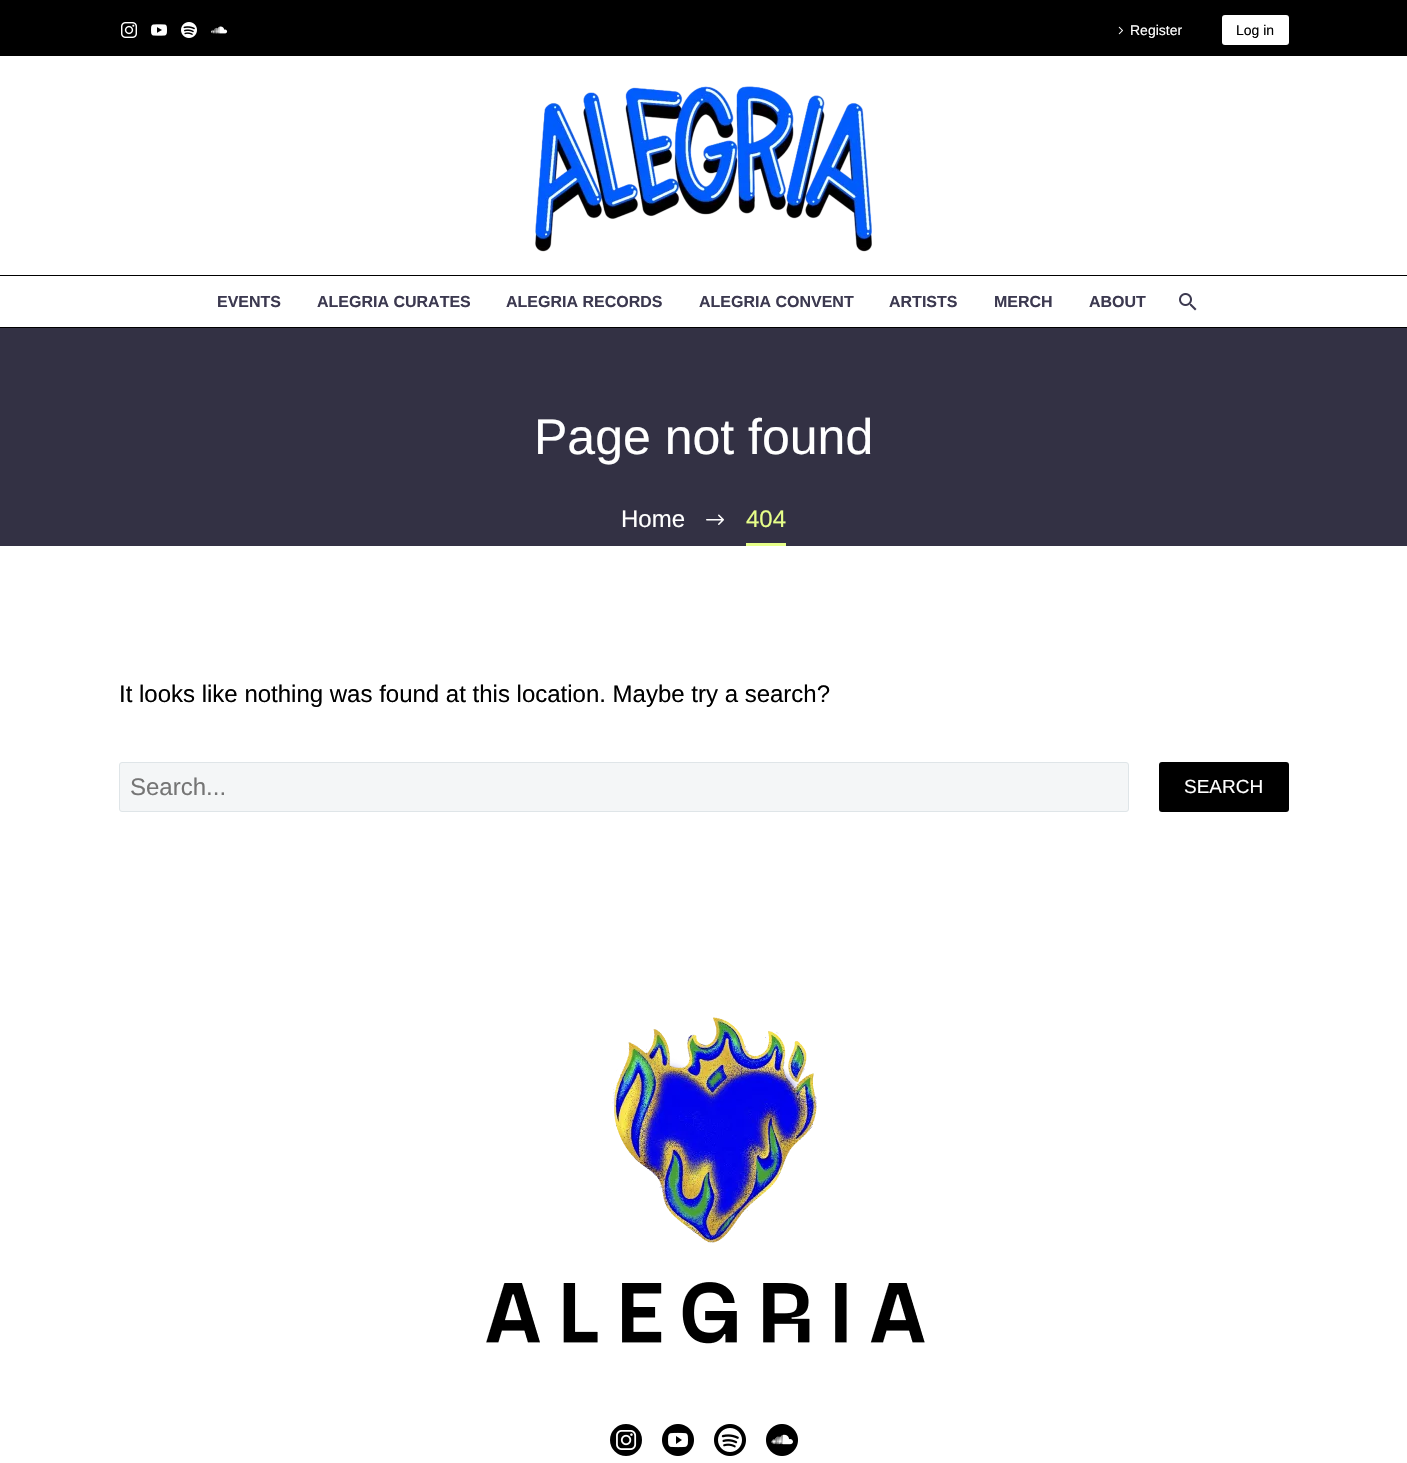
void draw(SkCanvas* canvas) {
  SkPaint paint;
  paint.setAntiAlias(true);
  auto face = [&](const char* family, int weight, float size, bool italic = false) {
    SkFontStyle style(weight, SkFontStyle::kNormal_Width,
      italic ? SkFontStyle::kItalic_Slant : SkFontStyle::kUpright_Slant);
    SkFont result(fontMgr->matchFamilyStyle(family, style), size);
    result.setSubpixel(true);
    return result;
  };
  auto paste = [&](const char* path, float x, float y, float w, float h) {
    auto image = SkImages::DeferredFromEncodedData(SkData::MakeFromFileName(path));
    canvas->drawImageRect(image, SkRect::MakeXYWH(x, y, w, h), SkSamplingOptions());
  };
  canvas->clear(0xffffffff);
  paint.setColor(0xff000000);
  canvas->drawRect(SkRect::MakeXYWH(0, 0, 1407, 56), paint);
  paste("img/1.png", 121, 22, 16, 16);
  paste("img/2.png", 151, 24, 16, 12);
  paste("img/3.png", 181, 22, 16, 16);
  paste("img/4.png", 211, 26, 17, 8);
  paste("img/5.png", 1118, 26, 5, 9);
  paint.setColor(0xffffffff);
  canvas->drawRoundRect(SkRect::MakeXYWH(1222, 15, 67, 30), 3, 3, paint);
  paste("img/6.png", 535, 86, 337, 166);
  paint.setColor(0xff000000);
  canvas->drawRect(SkRect::MakeXYWH(0, 275, 1407, 1), paint);
  canvas->drawRect(SkRect::MakeXYWH(0, 327, 1407, 1), paint);
  paste("img/7.png", 1179, 293, 18, 18);
  paint.setColor(0xff333144);
  canvas->drawRect(SkRect::MakeXYWH(0, 328, 1407, 218), paint);
  paste("img/8.png", 706, 514, 18, 11);
  paint.setColor(0xffe7ff89);
  canvas->drawRect(SkRect::MakeXYWH(746, 543, 40, 3), paint);
  paint.setColor(0xfff4f6f7);
  canvas->drawRoundRect(SkRect::MakeXYWH(119.5f, 762.5f, 1009, 49), 2.5f, 2.5f, paint);
  paint.setStroke(true);
  paint.setStrokeWidth(1);
  paint.setColor(0xffdfe5e8);
  canvas->drawRoundRect(SkRect::MakeXYWH(119.5f, 762.5f, 1009, 49), 2.5f, 2.5f, paint);
  paint.setStroke(false);
  paint.setColor(0xff000000);
  canvas->drawRoundRect(SkRect::MakeXYWH(1159, 762, 130, 50), 3, 3, paint);
  paste("img/9.png", 486, 1017, 439, 327);
  paste("img/10.png", 610, 1424, 32, 32);
  paste("img/11.png", 662, 1424, 32, 32);
  paste("img/12.png", 714, 1424, 32, 32);
  paste("img/13.png", 766, 1424, 32, 32);
  auto f0 = face("Liberation Sans", 400, 14);
  paint.setColor(0xffffffff);
  canvas->drawString("Register", 1130, 35, f0, paint);
  paint.setColor(0xff000000);
  canvas->drawString("Log in", 1236, 35, f0, paint);
  auto f1 = face("Liberation Sans", 700, 16);
  paint.setColor(0xff3c3950);
  {
    const struct { const char* s; float x, y; } items[] = {
      {"EVENTS", 217, 307},
      {"ALEGRIA CURATES", 317, 307},
      {"ALEGRIA RECORDS", 506, 307},
      {"ALEGRIA CONVENT", 699, 307},
      {"ARTISTS", 889, 307},
      {"MERCH", 994, 307},
      {"ABOUT", 1089, 307},
    };
    for (auto [s, x, y] : items) {
      canvas->drawString(s, x, y, f1, paint);
    }
  }
  auto f2 = face("Liberation Sans", 400, 50);
  paint.setColor(0xffffffff);
  canvas->drawString("Page not found", 534, 454, f2, paint);
  auto f3 = face("Liberation Sans", 400, 24);
  canvas->drawString("Home", 621, 527, f3, paint);
  paint.setColor(0xffe7ff89);
  canvas->drawString("404", 746, 527, f3, paint);
  paint.setColor(0xff000000);
  canvas->drawString("It looks like nothing was found at this location. Maybe try a search?", 119, 702, f3, paint);
  paint.setColor(0xff757575);
  canvas->drawString("Search...", 130, 795, f3, paint);
  auto f4 = face("Liberation Sans", 400, 19);
  paint.setColor(0xffffffff);
  canvas->drawString("SEARCH", 1184, 793, f4, paint);
}
